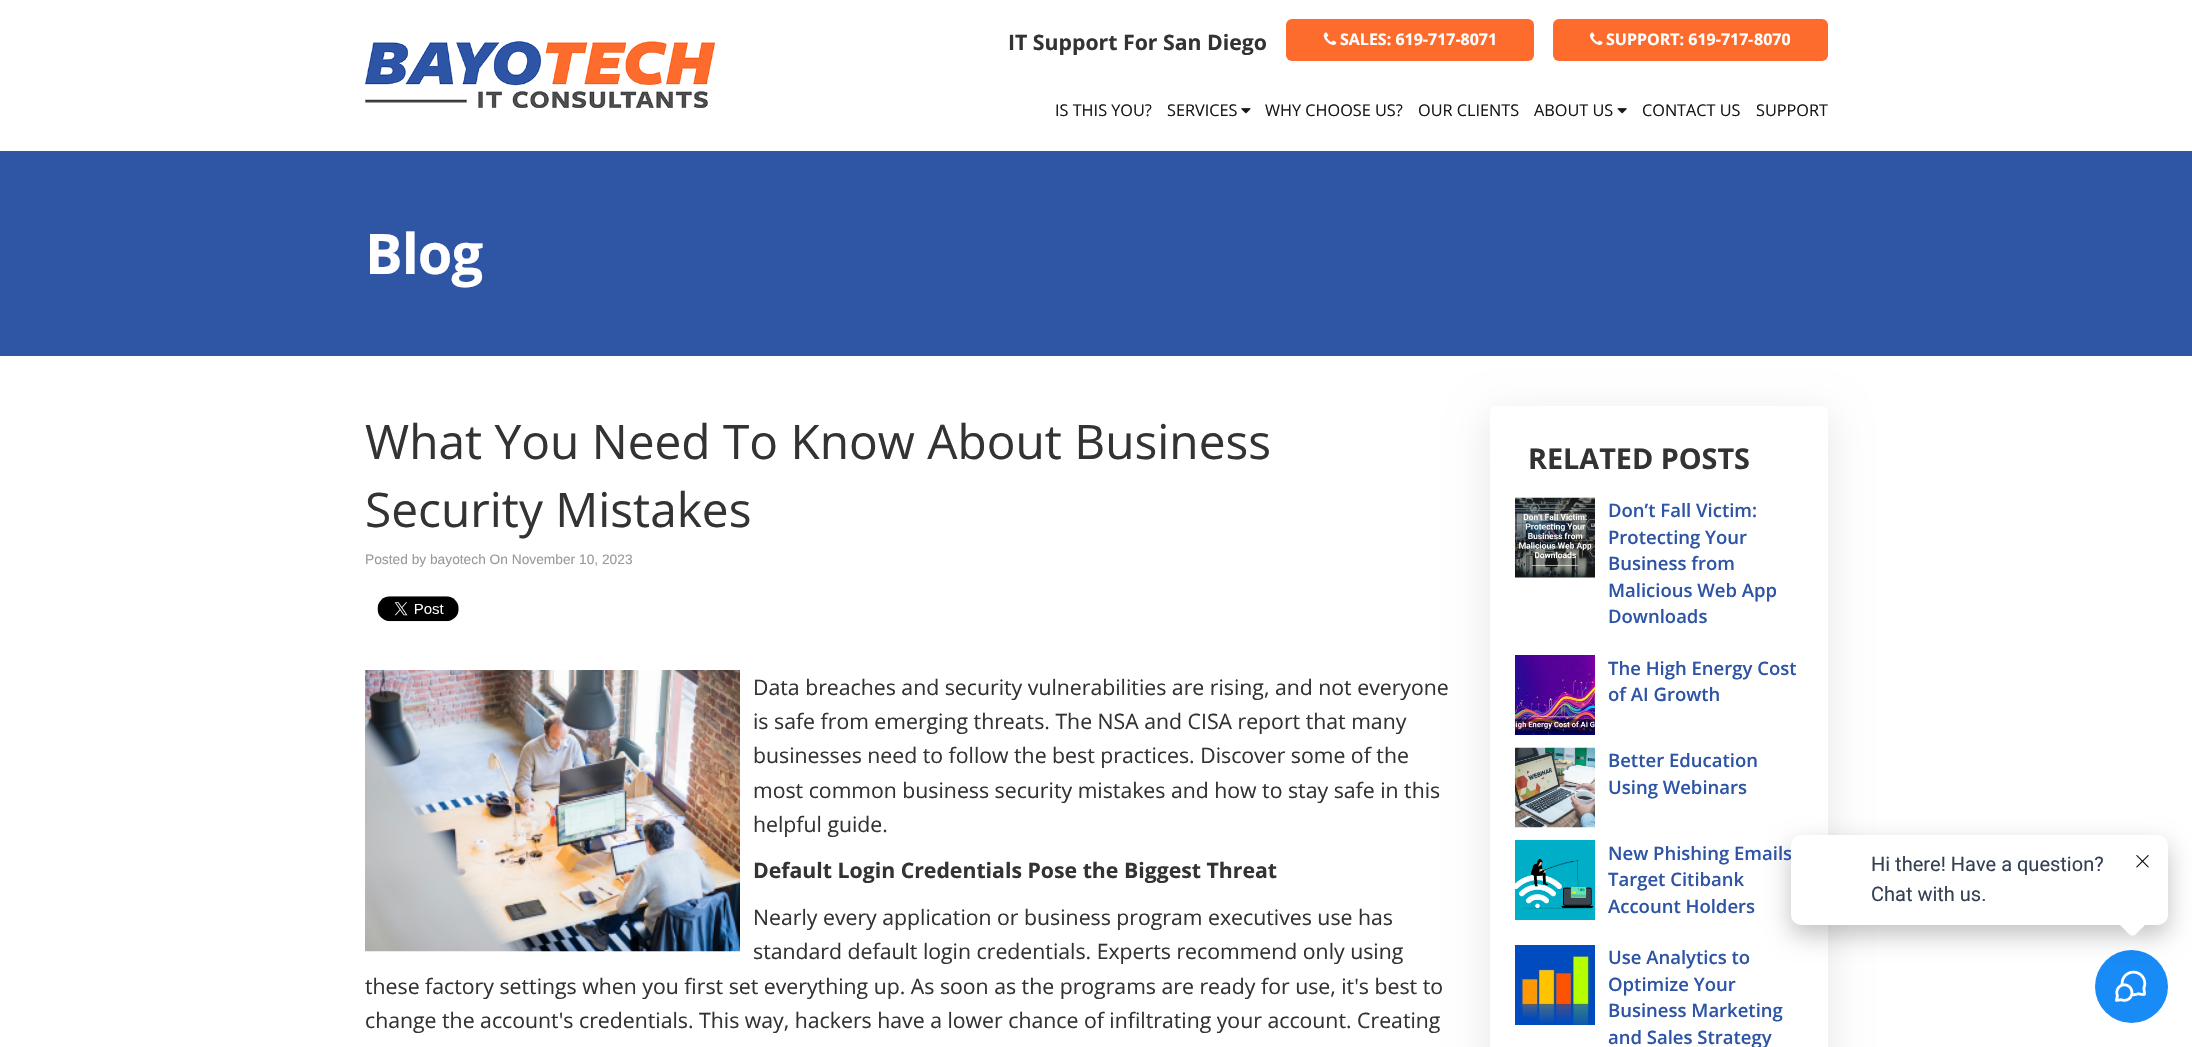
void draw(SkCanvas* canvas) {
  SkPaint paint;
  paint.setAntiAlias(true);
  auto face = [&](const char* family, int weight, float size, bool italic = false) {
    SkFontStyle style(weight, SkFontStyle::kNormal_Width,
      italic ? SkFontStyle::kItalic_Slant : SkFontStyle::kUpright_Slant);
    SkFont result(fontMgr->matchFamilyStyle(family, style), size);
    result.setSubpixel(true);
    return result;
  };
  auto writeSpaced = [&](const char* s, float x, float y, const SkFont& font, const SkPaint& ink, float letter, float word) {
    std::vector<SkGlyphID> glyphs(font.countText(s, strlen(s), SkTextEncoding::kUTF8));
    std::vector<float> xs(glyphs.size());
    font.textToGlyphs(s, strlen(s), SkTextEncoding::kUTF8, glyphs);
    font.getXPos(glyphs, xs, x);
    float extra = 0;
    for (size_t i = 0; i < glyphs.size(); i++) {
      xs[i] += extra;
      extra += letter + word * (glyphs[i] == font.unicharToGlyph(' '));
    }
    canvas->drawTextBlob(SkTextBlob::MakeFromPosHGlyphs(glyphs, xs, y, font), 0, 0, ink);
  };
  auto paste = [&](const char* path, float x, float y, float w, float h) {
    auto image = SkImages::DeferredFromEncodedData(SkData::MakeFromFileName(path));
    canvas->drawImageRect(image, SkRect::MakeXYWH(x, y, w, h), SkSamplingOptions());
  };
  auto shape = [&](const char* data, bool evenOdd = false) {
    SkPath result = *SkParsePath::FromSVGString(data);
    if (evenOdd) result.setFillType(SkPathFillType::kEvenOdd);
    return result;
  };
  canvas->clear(0xffffffff);
  paste("img/1.png", 365, 41, 350, 67);
  paint.setColor(0xfffe6c2d);
  canvas->drawRoundRect(SkRect::MakeXYWH(1286, 19, 248, 42), 6, 6, paint);
  paste("img/2.png", 1323, 32, 14, 13);
  canvas->drawRoundRect(SkRect::MakeXYWH(1553, 19, 275, 42), 6, 6, paint);
  paste("img/3.png", 1590, 32, 13, 13);
  paste("img/4.png", 1241, 108, 10, 6);
  paste("img/5.png", 1617, 108, 10, 6);
  paint.setColor(0x1a000000);
  paint.setMaskFilter(SkMaskFilter::MakeBlur(kNormal_SkBlurStyle, 20));
  canvas->drawRoundRect(SkRect::MakeXYWH(1490, 416, 338, 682), 6, 6, paint);
  paint.setMaskFilter(nullptr);
  paint.setColor(0xff2e56a5);
  canvas->drawRect(SkRect::MakeXYWH(0, 151, 2192, 205), paint);
  paste("img/6.png", 377, 596, 82, 26);
  paste("img/7.png", 365, 670, 375, 282);
  paint.setColor(0xffffffff);
  canvas->drawRoundRect(SkRect::MakeXYWH(1490, 406, 338, 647), 6, 6, paint);
  paste("img/8.png", 1515, 497, 80, 81);
  paste("img/9.png", 1515, 655, 80, 80);
  paste("img/10.png", 1515, 747, 80, 81);
  paste("img/11.png", 1515, 840, 80, 80);
  paste("img/12.png", 1515, 945, 80, 80);
  paint.setColor(0xff188bf6);
  canvas->drawCircle(2131.5f, 986.5f, 36.5f, paint);
  paste("img/14.png", 2115, 970, 32, 32);
  paint.setColor(0x3d000000);
  paint.setMaskFilter(SkMaskFilter::MakeBlur(kNormal_SkBlurStyle, 12.5f));
  canvas->drawRoundRect(SkRect::MakeXYWH(1791, 845, 377, 90), 10, 10, paint);
  paint.setMaskFilter(nullptr);
  auto f0 = face("Open Sans", 700, 21.25f);
  paint.setColor(0xff333333);
  canvas->drawString("IT Support For San Diego", 1008, 50, f0, paint);
  auto f1 = face("Open Sans", 700, 16);
  paint.setColor(0xffffffff);
  canvas->drawString("SALES: 619-717-8071", 1340, 45, f1, paint);
  canvas->drawString("SUPPORT: 619-717", 1606, 45, f1, paint);
  auto f2 = face("Liberation Sans", 700, 16);
  canvas->drawString("‐", 1748, 45, f2, paint);
  canvas->drawString("8070", 1754, 45, f1, paint);
  auto f3 = face("Open Sans", 400, 16.25f);
  paint.setColor(0xff171717);
  {
    const struct { const char* s; float x, y; } items[] = {
      {"IS THIS YOU?", 1055, 116},
      {"SERVICES", 1167, 116},
      {"WHY CHOOSE US?", 1265, 116},
      {"OUR CLIENTS", 1418, 116},
      {"ABOUT US", 1534, 116},
      {"CONTACT US", 1642, 116},
      {"SUPPORT", 1756, 116},
    };
    for (auto [s, x, y] : items) {
      canvas->drawString(s, x, y, f3, paint);
    }
  }
  auto f4 = face("Open Sans", 700, 56);
  paint.setColor(0xffffffff);
  writeSpaced("Blog", 365, 274, f4, paint, -1, 0);
  auto f5 = face("Open Sans", 400, 47.8f);
  paint.setColor(0xff333333);
  canvas->drawString("What You Need To Know About Business", 365, 459, f5, paint);
  canvas->drawString("Security Mistakes", 365, 527, f5, paint);
  auto f6 = face("Liberation Sans", 400, 13.75f);
  paint.setColor(0xff999999);
  canvas->drawString("Posted by bayotech On November 10, 2023", 365, 564, f6, paint);
  auto f7 = face("Open Sans", 400, 21.25f);
  paint.setColor(0xff333333);
  {
    const struct { const char* s; float x, y; } items[] = {
      {"Data breaches and security vulnerabilities are rising, and not everyone", 753, 695},
      {"is safe from emerging threats. The NSA and CISA report that many", 753, 729},
      {"businesses need to follow the best practices. Discover some of the", 753, 763},
      {"most common business security mistakes and how to stay safe in this", 753, 798},
      {"helpful guide.", 753, 832},
    };
    for (auto [s, x, y] : items) {
      canvas->drawString(s, x, y, f7, paint);
    }
  }
  canvas->drawString("Default Login Credentials Pose the Biggest Threat", 753, 878, f0, paint);
  {
    const struct { const char* s; float x, y; } items[] = {
      {"Nearly every application or business program executives use has", 753, 925},
      {"standard default login credentials. Experts recommend only using", 753, 959},
      {"these factory settings when you first set everything up. As soon as the programs are ready for use, it's best to", 365, 994},
      {"change the account's credentials. This way, hackers have a lower chance of infiltrating your account. Creating", 365, 1028},
    };
    for (auto [s, x, y] : items) {
      canvas->drawString(s, x, y, f7, paint);
    }
  }
  auto f8 = face("Open Sans", 700, 28.75f);
  canvas->drawString("RELATED POSTS", 1528, 469, f8, paint);
  auto f9 = face("Open Sans", 600, 18.5f);
  paint.setColor(0xff2e55a5);
  {
    const struct { const char* s; float x, y; } items[] = {
      {"Don’t Fall Victim:", 1608, 517},
      {"Protecting Your", 1608, 544},
      {"Business from", 1608, 570},
      {"Malicious Web App", 1608, 597},
      {"Downloads", 1608, 623},
    };
    for (auto [s, x, y] : items) {
      canvas->drawString(s, x, y, f9, paint);
    }
  }
  canvas->save();
  canvas->clipRect(SkRect::MakeXYWH(1608, 655, 195, 53));
  canvas->drawString("The High Energy Cost", 1608, 675, f9, paint);
  canvas->restore();
  {
    const struct { const char* s; float x, y; } items[] = {
      {"of AI Growth", 1608, 701},
      {"Better Education", 1608, 767},
      {"Using Webinars", 1608, 794},
      {"New Phishing Emails", 1608, 860},
    };
    for (auto [s, x, y] : items) {
      canvas->drawString(s, x, y, f9, paint);
    }
  }
  canvas->save();
  canvas->clipRect(SkRect::MakeXYWH(1608, 840, 195, 80));
  canvas->drawString("Target Citibank", 1608, 886, f9, paint);
  canvas->restore();
  {
    const struct { const char* s; float x, y; } items[] = {
      {"Account Holders", 1608, 913},
      {"Use Analytics to", 1608, 964},
      {"Optimize Your", 1608, 991},
      {"Business Marketing", 1608, 1017},
      {"and Sales Strategy", 1608, 1044},
    };
    for (auto [s, x, y] : items) {
      canvas->drawString(s, x, y, f9, paint);
    }
  }
  paint.setColor(0xffffffff);
  canvas->drawRoundRect(SkRect::MakeXYWH(1791, 835, 377, 90), 10, 10, paint);
  auto f10 = face("Roboto", 400, 20);
  paint.setColor(0xff344054);
  canvas->drawString("Hi there! Have a question?", 1871, 871, f10, paint);
  canvas->drawString("Chat with us.", 1871, 901, f10, paint);
  paint.setColor(0xffffffff);
  canvas->drawPath(shape("M2136 906L2146.5 916.5C2148.5 918.5 2148.5 921.5 2146.5 923.5L2136 934C2134 936 2131 936 2129 934L2118.5 923.5C2116.5 921.5 2116.5 918.5 2118.5 916.5L2129 906C2131 904 2134 904 2136 906Z"), paint);
  paste("img/13.png", 2136, 855, 13, 13);
}
